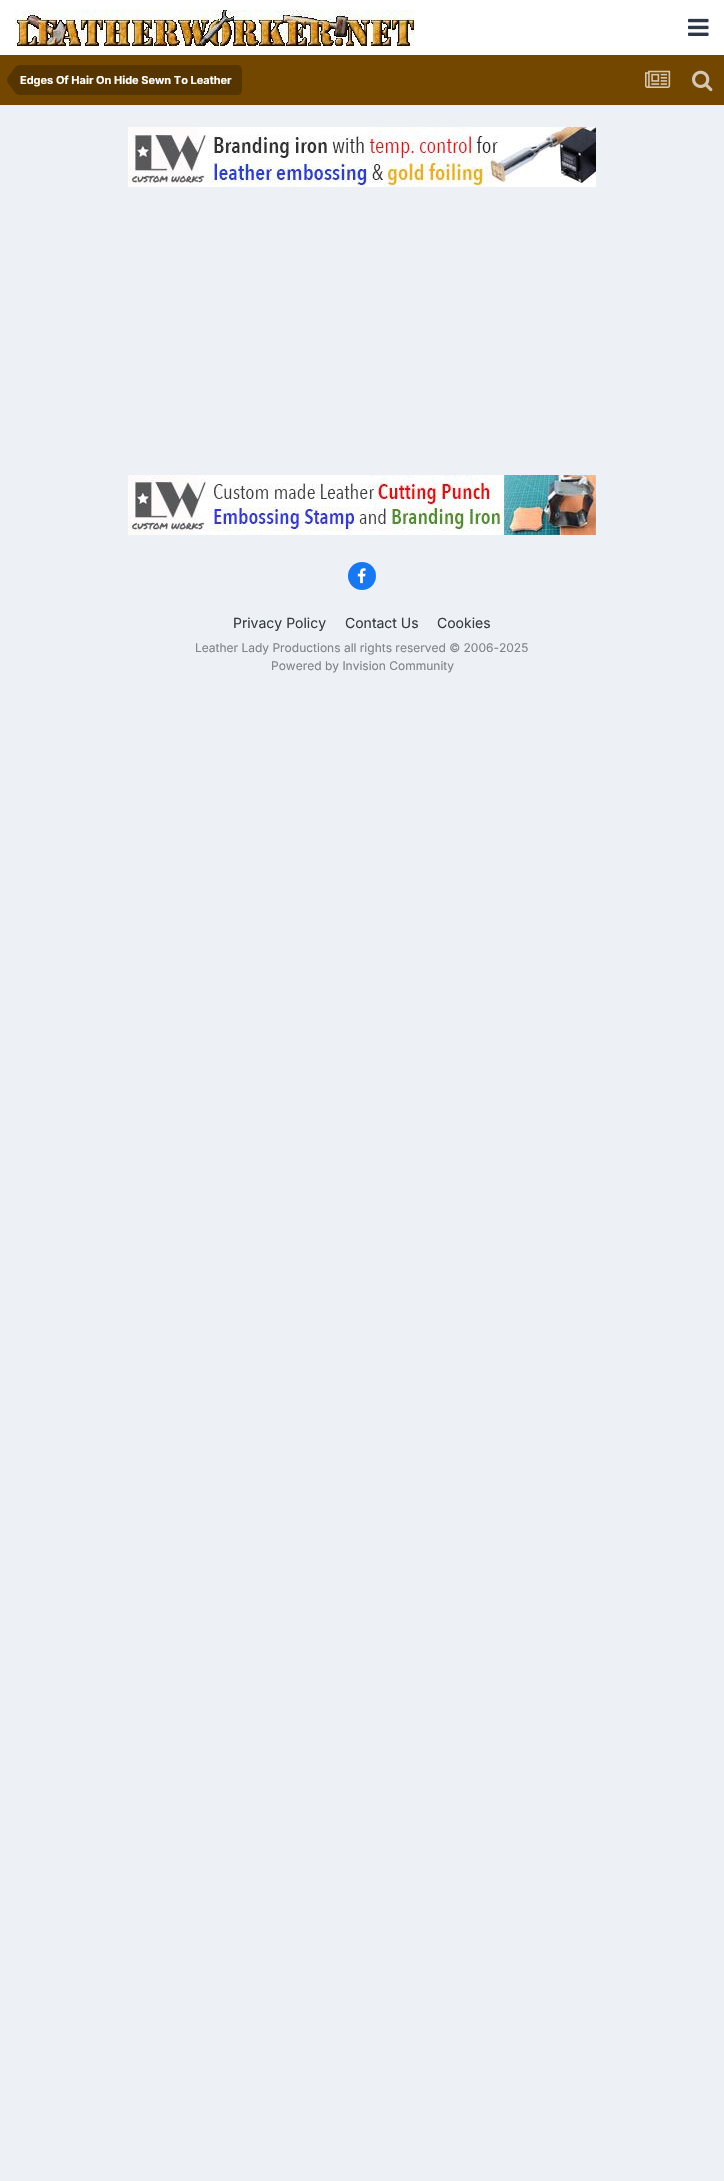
void draw(SkCanvas* canvas) {
  SkPaint paint;
  paint.setAntiAlias(true);
  auto face = [&](const char* family, int weight, float size, bool italic = false) {
    SkFontStyle style(weight, SkFontStyle::kNormal_Width,
      italic ? SkFontStyle::kItalic_Slant : SkFontStyle::kUpright_Slant);
    SkFont result(fontMgr->matchFamilyStyle(family, style), size);
    result.setSubpixel(true);
    return result;
  };
  auto paste = [&](const char* path, float x, float y, float w, float h) {
    auto image = SkImages::DeferredFromEncodedData(SkData::MakeFromFileName(path));
    canvas->drawImageRect(image, SkRect::MakeXYWH(x, y, w, h), SkSamplingOptions());
  };
  auto shape = [&](const char* data, bool evenOdd = false) {
    SkPath result = *SkParsePath::FromSVGString(data);
    if (evenOdd) result.setFillType(SkPathFillType::kEvenOdd);
    return result;
  };
  canvas->clear(0xffedf0f4);
  paint.setColor(0xffffffff);
  canvas->drawRect(SkRect::MakeXYWH(0, 0, 724, 55), paint);
  paste("img/1.png", 15, 10, 400, 36);
  paste("img/2.png", 688, 18, 21, 18);
  paint.setColor(0xff744700);
  canvas->drawRect(SkRect::MakeXYWH(0, 55, 724, 50), paint);
  paint.setColor(0xff573500);
  canvas->drawPath(shape("M20 65H237C240 65 242 67 242 70V90C242 93 240 95 237 95H20Z"), paint);
  canvas->drawPath(shape("M20 80V95C15.5 95 13.5 90.5 11 87C9.5 85 7 83 7 80ZM20 80H7C7 77 9.5 75 11 73C13.5 69.5 15.5 65 20 65Z"), paint);
  paste("img/3.png", 645, 70, 26, 18);
  paste("img/4.png", 692, 70, 21, 22);
  paste("img/5.png", 128, 127, 468, 60);
  paste("img/6.png", 128, 475, 468, 60);
  paint.setColor(0xff1778f2);
  canvas->drawCircle(362, 576, 14, paint);
  paste("img/7.png", 357, 568, 9, 16);
  auto f0 = face("Inter", 700, 11);
  paint.setColor(0xffffffff);
  canvas->drawString("Edges Of Hair On Hide Sewn To Leather", 20, 84, f0, paint);
  auto f1 = face("Inter", 400, 14);
  paint.setColor(0xff353c41);
  {
    const struct { const char* s; float x, y; } items[] = {
      {"Privacy Policy", 233, 628},
      {"Contact Us", 345, 628},
      {"Cookies", 437, 628},
    };
    for (auto [s, x, y] : items) {
      canvas->drawString(s, x, y, f1, paint);
    }
  }
  auto f2 = face("Inter", 400, 12);
  paint.setColor(0xff7f8489);
  canvas->drawString("Leather Lady Productions all rights reserved © 2006-2025", 195, 652, f2, paint);
  canvas->drawString("Powered by Invision Community", 271, 670, f2, paint);
}
